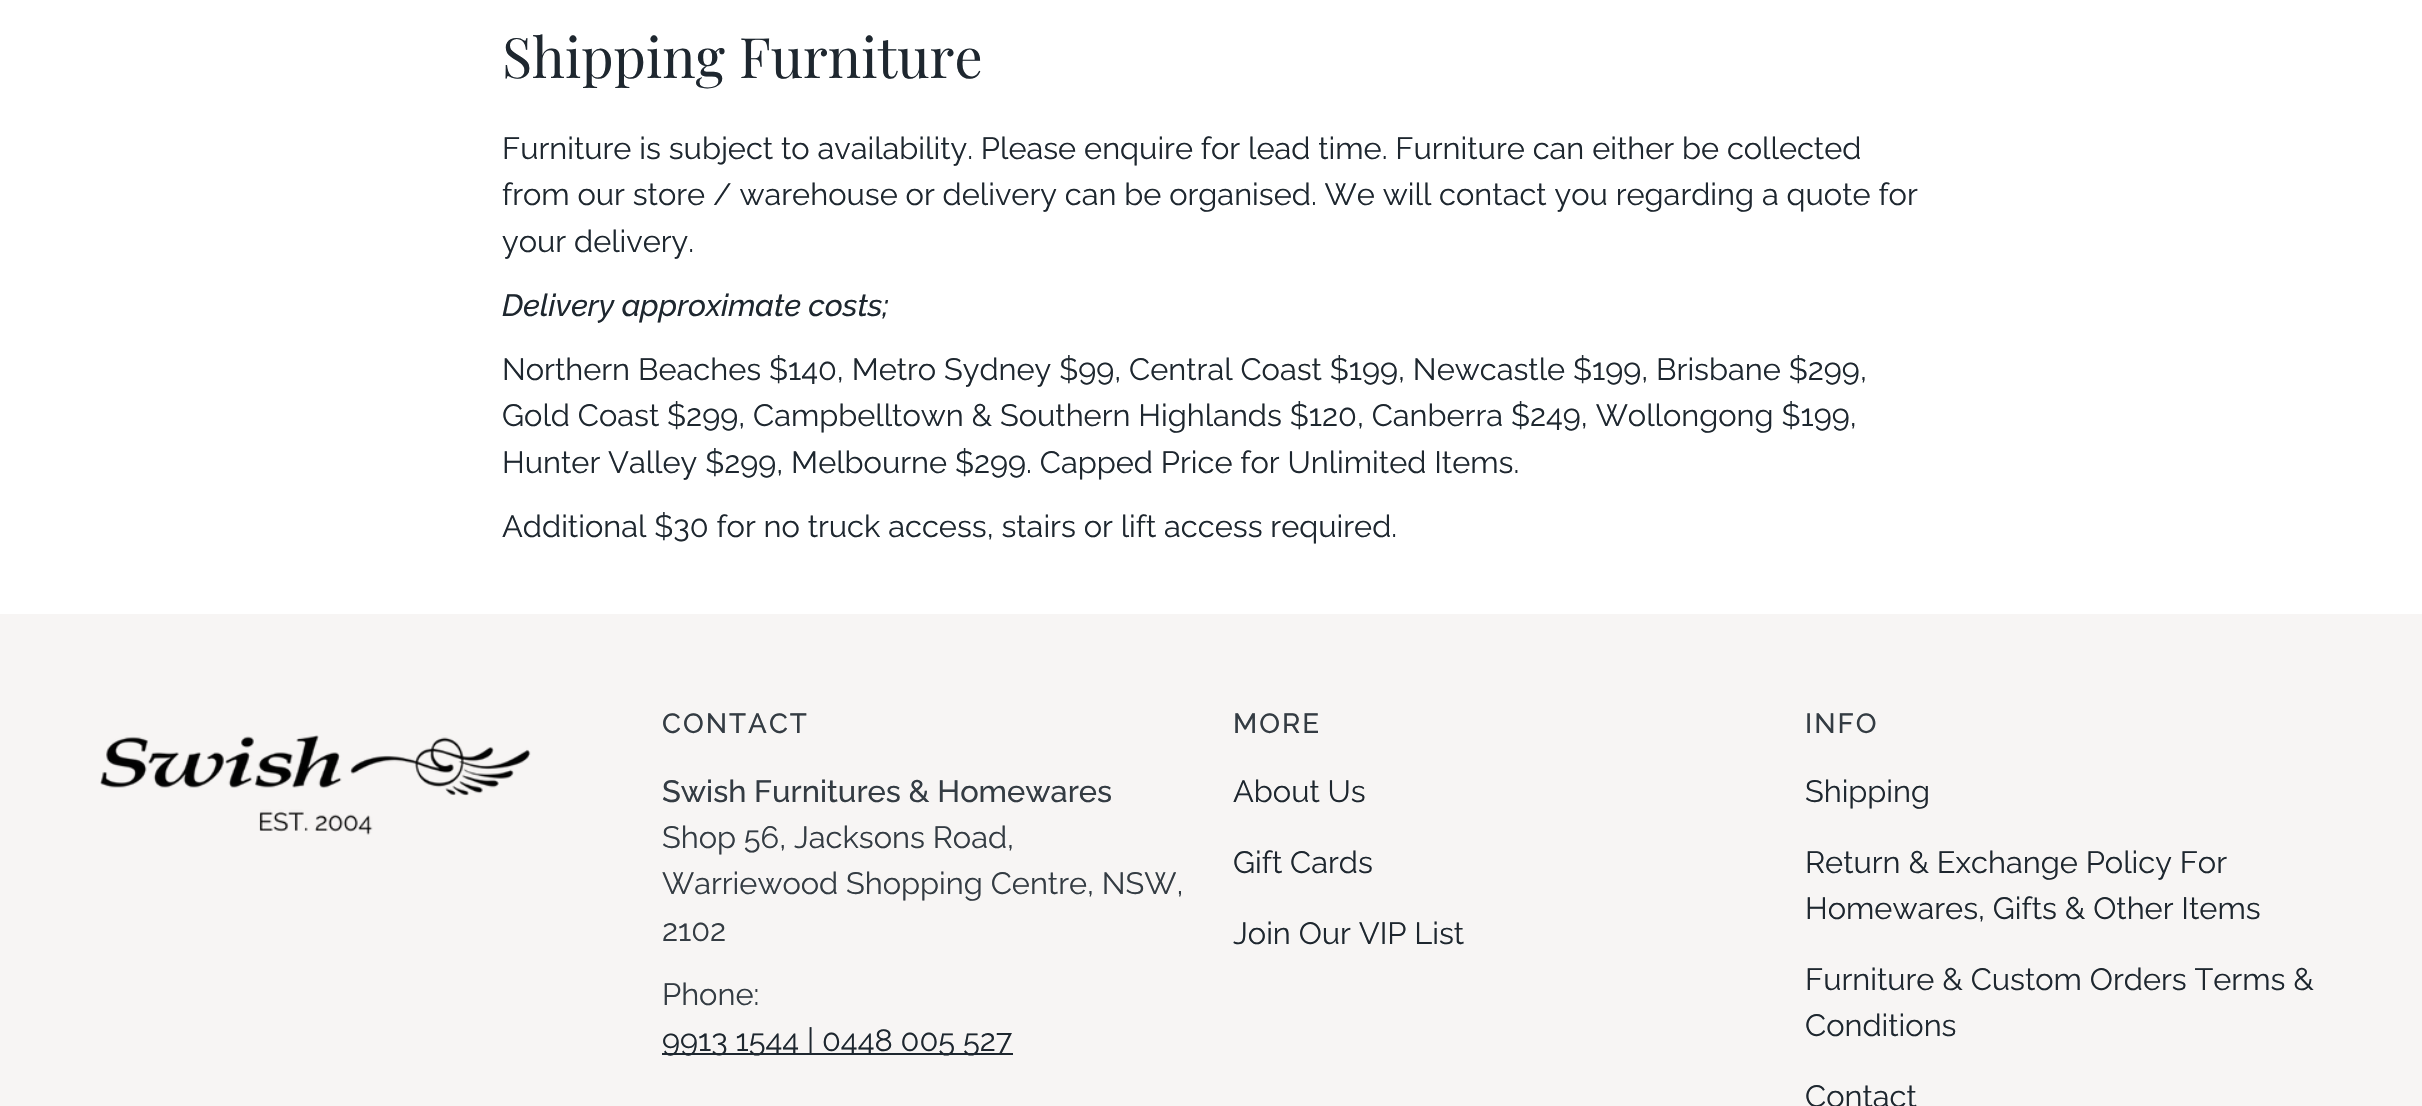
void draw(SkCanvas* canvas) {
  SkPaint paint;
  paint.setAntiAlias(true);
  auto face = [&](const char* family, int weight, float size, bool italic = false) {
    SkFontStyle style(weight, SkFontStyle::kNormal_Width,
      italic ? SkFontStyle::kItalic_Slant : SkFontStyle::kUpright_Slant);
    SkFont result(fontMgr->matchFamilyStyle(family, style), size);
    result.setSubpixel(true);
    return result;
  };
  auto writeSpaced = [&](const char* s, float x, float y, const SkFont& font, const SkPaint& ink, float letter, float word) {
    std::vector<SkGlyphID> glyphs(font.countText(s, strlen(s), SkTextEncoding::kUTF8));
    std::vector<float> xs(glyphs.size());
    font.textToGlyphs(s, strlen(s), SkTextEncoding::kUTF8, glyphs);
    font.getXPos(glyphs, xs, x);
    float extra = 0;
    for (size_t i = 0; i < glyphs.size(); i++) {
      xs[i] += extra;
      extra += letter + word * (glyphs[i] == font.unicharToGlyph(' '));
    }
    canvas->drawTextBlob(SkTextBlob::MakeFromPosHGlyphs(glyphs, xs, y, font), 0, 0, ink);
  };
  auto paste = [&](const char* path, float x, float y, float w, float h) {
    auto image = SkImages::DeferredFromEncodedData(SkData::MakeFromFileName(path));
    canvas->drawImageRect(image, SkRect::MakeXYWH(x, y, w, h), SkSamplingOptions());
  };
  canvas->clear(0xffffffff);
  paint.setColor(0xfff7f5f4);
  canvas->drawRect(SkRect::MakeXYWH(0, 614, 2422, 492), paint);
  paste("img/1.png", 100, 735, 431, 100);
  paint.setColor(0xff1e272f);
  canvas->drawRect(SkRect::MakeXYWH(662, 1053, 351, 2), paint);
  auto f0 = face("Playfair Display", 400, 55.75f);
  canvas->drawString("Shipping Furniture", 502, 78, f0, paint);
  auto f1 = face("Raleway", 400, 30.8f);
  {
    const struct { const char* s; float x, y; } items[] = {
      {"Furniture is subject to availability. Please enquire for lead time. Furniture can either be collected", 502, 159},
      {"from our store / warehouse or delivery can be organised. We will contact you regarding a quote for", 502, 205},
      {"your delivery.", 502, 252},
    };
    for (auto [s, x, y] : items) {
      canvas->drawString(s, x, y, f1, paint);
    }
  }
  auto f2 = face("Raleway", 500, 30.8f, true);
  canvas->drawString("Delivery approximate costs;", 502, 316, f2, paint);
  {
    const struct { const char* s; float x, y; } items[] = {
      {"Northern Beaches $140, Metro Sydney $99, Central Coast $199, Newcastle $199, Brisbane $299,", 502, 380},
      {"Gold Coast $299, Campbelltown & Southern Highlands $120, Canberra $249, Wollongong $199,", 502, 426},
      {"Hunter Valley $299, Melbourne $299. Capped Price for Unlimited Items.", 502, 473},
      {"Additional $30 for no truck access, stairs or lift access required.", 502, 537},
    };
    for (auto [s, x, y] : items) {
      canvas->drawString(s, x, y, f1, paint);
    }
  }
  auto f3 = face("Raleway", 500, 27.75f);
  paint.setColor(0xff343c43);
  writeSpaced("CONTACT", 662, 733, f3, paint, 2, 0);
  auto f4 = face("Raleway", 500, 30.8f);
  canvas->drawString("Swish Furnitures & Homewares", 662, 802, f4, paint);
  {
    const struct { const char* s; float x, y; } items[] = {
      {"Shop 56, Jacksons Road,", 662, 848},
      {"Warriewood Shopping Centre, NSW,", 662, 894},
      {"2102", 662, 941},
      {"Phone:", 662, 1005},
    };
    for (auto [s, x, y] : items) {
      canvas->drawString(s, x, y, f1, paint);
    }
  }
  paint.setColor(0xff1e272f);
  canvas->drawString("9913 1544 | 0448 005 527", 662, 1051, f1, paint);
  paint.setColor(0xff343c43);
  writeSpaced("MORE", 1233, 733, f3, paint, 2, 0);
  paint.setColor(0xff1e272f);
  {
    const struct { const char* s; float x, y; } items[] = {
      {"About Us", 1233, 802},
      {"Gift Cards", 1233, 873},
      {"Join Our VIP List", 1233, 944},
    };
    for (auto [s, x, y] : items) {
      canvas->drawString(s, x, y, f1, paint);
    }
  }
  paint.setColor(0xff343c43);
  writeSpaced("INFO", 1805, 733, f3, paint, 2, 0);
  paint.setColor(0xff1e272f);
  {
    const struct { const char* s; float x, y; } items[] = {
      {"Shipping", 1805, 802},
      {"Return & Exchange Policy For", 1805, 873},
      {"Homewares, Gifts & Other Items", 1805, 919},
      {"Furniture & Custom Orders Terms &", 1805, 990},
      {"Conditions", 1805, 1036},
      {"Contact", 1805, 1107},
    };
    for (auto [s, x, y] : items) {
      canvas->drawString(s, x, y, f1, paint);
    }
  }
}
